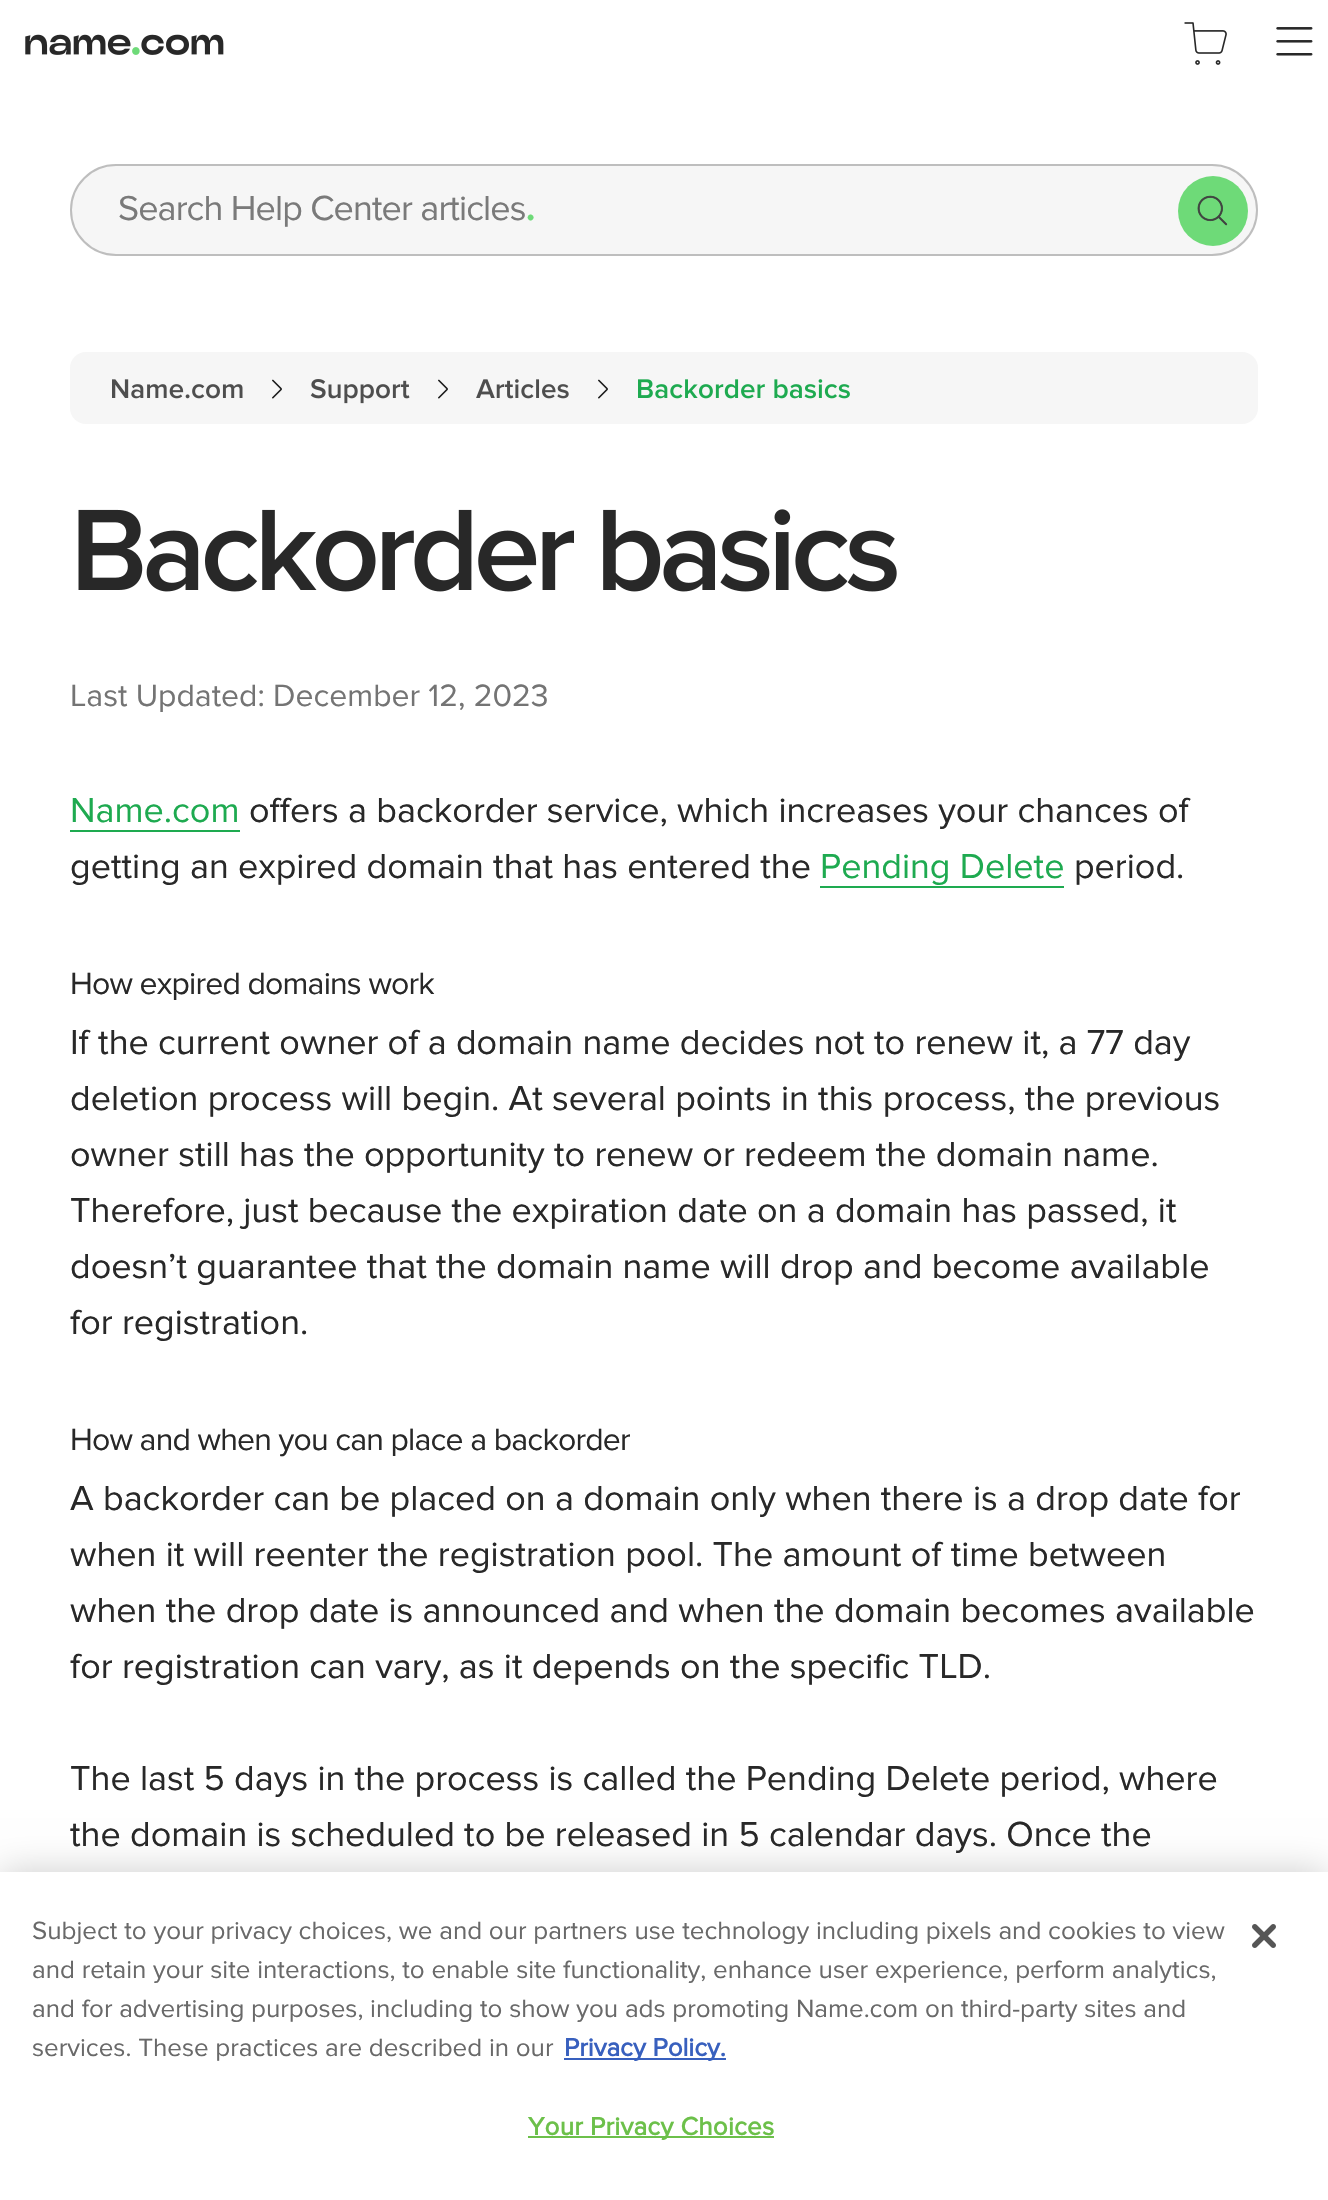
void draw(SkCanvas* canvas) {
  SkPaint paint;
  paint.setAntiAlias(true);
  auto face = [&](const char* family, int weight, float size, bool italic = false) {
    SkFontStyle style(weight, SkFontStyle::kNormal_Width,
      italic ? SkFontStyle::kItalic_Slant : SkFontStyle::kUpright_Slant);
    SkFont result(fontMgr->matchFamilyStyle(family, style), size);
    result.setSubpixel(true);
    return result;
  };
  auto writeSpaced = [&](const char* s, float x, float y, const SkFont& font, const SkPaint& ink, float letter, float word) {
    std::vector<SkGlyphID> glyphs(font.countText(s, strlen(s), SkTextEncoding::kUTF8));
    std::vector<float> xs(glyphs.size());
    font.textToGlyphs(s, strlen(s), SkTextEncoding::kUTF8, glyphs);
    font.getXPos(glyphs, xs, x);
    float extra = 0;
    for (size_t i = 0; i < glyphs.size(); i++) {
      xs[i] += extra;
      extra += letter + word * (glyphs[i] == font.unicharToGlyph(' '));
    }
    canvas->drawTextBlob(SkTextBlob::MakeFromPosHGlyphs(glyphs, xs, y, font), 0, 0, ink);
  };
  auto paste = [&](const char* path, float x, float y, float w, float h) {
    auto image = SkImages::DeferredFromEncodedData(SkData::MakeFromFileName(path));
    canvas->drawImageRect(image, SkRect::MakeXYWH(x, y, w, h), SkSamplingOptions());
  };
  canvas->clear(0xffffffff);
  paste("img/1.png", 25, 34, 199, 21);
  paste("img/2.png", 1184, 22, 43, 43);
  paste("img/3.png", 1276, 27, 37, 29);
  paint.setColor(0xfff6f6f6);
  canvas->drawRoundRect(SkRect::MakeXYWH(71, 165, 1186, 90), 45, 45, paint);
  paint.setStroke(true);
  paint.setStrokeWidth(2);
  paint.setColor(0xffbebebe);
  canvas->drawRoundRect(SkRect::MakeXYWH(71, 165, 1186, 90), 45, 45, paint);
  paint.setStroke(false);
  paint.setColor(0xff6eda78);
  canvas->drawCircle(1213, 211, 35, paint);
  paste("img/4.png", 1197, 195, 31, 31);
  paint.setColor(0xfff6f6f6);
  canvas->drawRoundRect(SkRect::MakeXYWH(70, 352, 1188, 72), 16, 16, paint);
  paste("img/5.png", 112, 379, 131, 20);
  paste("img/6.png", 272, 379, 10, 20);
  paste("img/7.png", 310, 379, 100, 25);
  paste("img/6.png", 438, 379, 10, 20);
  paste("img/8.png", 476, 379, 93, 20);
  paste("img/6.png", 598, 379, 10, 20);
  paste("img/9.png", 638, 379, 212, 20);
  paste("img/10.png", 78, 509, 819, 83);
  paint.setColor(0xff1eaa50);
  canvas->drawRect(SkRect::MakeXYWH(70, 830, 170, 2), paint);
  canvas->drawRect(SkRect::MakeXYWH(820, 886, 244, 2), paint);
  paint.setColor(0x33000000);
  paint.setMaskFilter(SkMaskFilter::MakeBlur(kNormal_SkBlurStyle, 18));
  canvas->drawRect(SkRect::MakeXYWH(0, 1872, 1328, 328), paint);
  paint.setMaskFilter(nullptr);
  {
    const struct { float x, y, w, h; SkColor color; } items[] = {
      {0, 1872, 1328, 328, 0xffffffff},
      {564, 2058, 162, 2, 0xff3860be},
      {528, 2136, 246, 2, 0xff6cc04a},
    };
    for (auto [x, y, w, h, color] : items) {
      paint.setColor(color);
      canvas->drawRect(SkRect::MakeXYWH(x, y, w, h), paint);
    }
  }
  paste("img/11.png", 1252, 1924, 24, 24);
  auto f0 = face("Proxima Nova", 400, 36);
  paint.setColor(0xff7a7a7a);
  writeSpaced("Search Help Center articles", 118, 220, f0, paint, -0.9f, 0);
  auto f1 = face("Proxima Nova", 700, 36);
  paint.setColor(0xff6eda78);
  writeSpaced(".", 526, 220, f1, paint, -0.9f, 0);
  auto f2 = face("Proxima Nova", 400, 32);
  paint.setColor(0xff747474);
  canvas->drawString("Last Updated: December 12, 2023", 70, 706, f2, paint);
  paint.setColor(0xff1eaa50);
  canvas->drawString("Name.com", 70, 822, f0, paint);
  paint.setColor(0xff282828);
  canvas->drawString("offers a backorder service, which increases your chances of", 249, 822, f0, paint);
  canvas->drawString("getting an expired domain that has entered the", 70, 878, f0, paint);
  paint.setColor(0xff1eaa50);
  canvas->drawString("Pending Delete", 820, 878, f0, paint);
  paint.setColor(0xff282828);
  canvas->drawString("period.", 1074, 878, f0, paint);
  writeSpaced("How expired domains work", 70, 994, f2, paint, -0.8f, 0);
  {
    const struct { const char* s; float x, y; } items[] = {
      {"If the current owner of a domain name decides not to renew it, a 77 day", 70, 1054},
      {"deletion process will begin. At several points in this process, the previous", 70, 1110},
      {"owner still has the opportunity to renew or redeem the domain name.", 70, 1166},
      {"Therefore, just because the expiration date on a domain has passed, it", 70, 1222},
      {"doesn’t guarantee that the domain name will drop and become available", 70, 1278},
      {"for registration.", 70, 1334},
    };
    for (auto [s, x, y] : items) {
      canvas->drawString(s, x, y, f0, paint);
    }
  }
  writeSpaced("How and when you can place a backorder", 70, 1450, f2, paint, -0.8f, 0);
  {
    const struct { const char* s; float x, y; } items[] = {
      {"A backorder can be placed on a domain only when there is a drop date for", 70, 1510},
      {"when it will reenter the registration pool. The amount of time between", 70, 1566},
      {"when the drop date is announced and when the domain becomes available", 70, 1622},
      {"for registration can vary, as it depends on the specific TLD.", 70, 1678},
      {"The last 5 days in the process is called the Pending Delete period, where", 70, 1790},
      {"the domain is scheduled to be released in 5 calendar days. Once the", 70, 1846},
    };
    for (auto [s, x, y] : items) {
      canvas->drawString(s, x, y, f0, paint);
    }
  }
  auto f3 = face("Proxima Nova", 400, 26);
  paint.setColor(0xff696969);
  {
    const struct { const char* s; float x, y; } items[] = {
      {"Subject to your privacy choices, we and our partners use technology including pixels and cookies to view", 32, 1939},
      {"and retain your site interactions, to enable site functionality, enhance user experience, perform analytics,", 32, 1978},
      {"and for advertising purposes, including to show you ads promoting Name.com on third-party sites and", 32, 2017},
      {"services. These practices are described in our", 32, 2056},
    };
    for (auto [s, x, y] : items) {
      canvas->drawString(s, x, y, f3, paint);
    }
  }
  auto f4 = face("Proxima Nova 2", 700, 26);
  paint.setColor(0xff3860be);
  canvas->drawString("Privacy Policy.", 564, 2056, f4, paint);
  paint.setColor(0xff6cc04a);
  writeSpaced("Your Privacy Choices", 528, 2135, f4, paint, 0.25f, 0);
}
